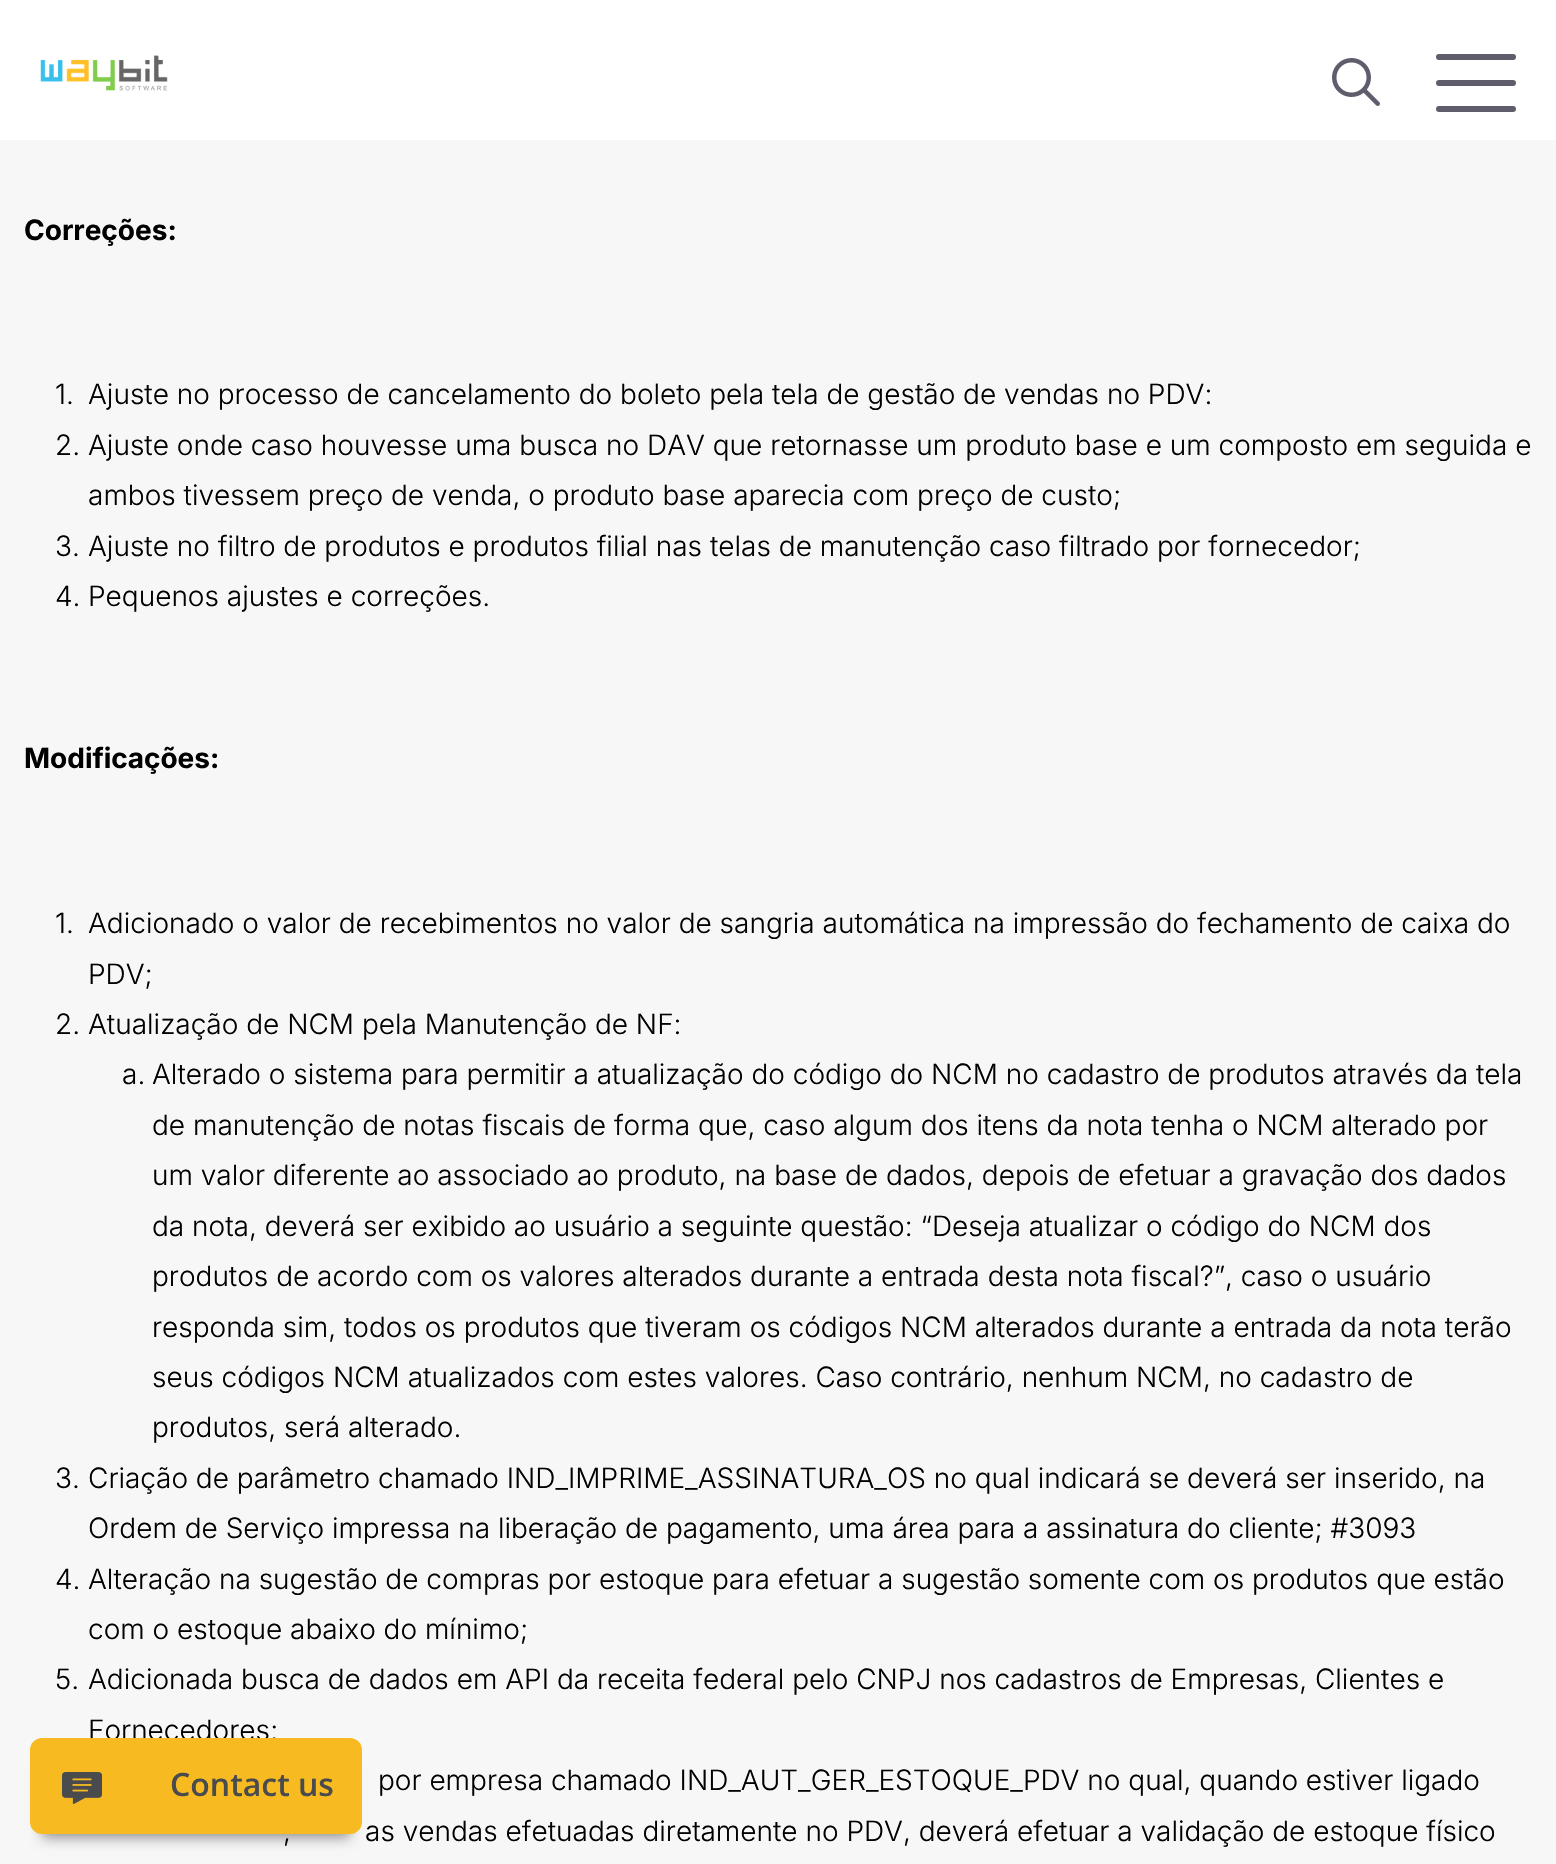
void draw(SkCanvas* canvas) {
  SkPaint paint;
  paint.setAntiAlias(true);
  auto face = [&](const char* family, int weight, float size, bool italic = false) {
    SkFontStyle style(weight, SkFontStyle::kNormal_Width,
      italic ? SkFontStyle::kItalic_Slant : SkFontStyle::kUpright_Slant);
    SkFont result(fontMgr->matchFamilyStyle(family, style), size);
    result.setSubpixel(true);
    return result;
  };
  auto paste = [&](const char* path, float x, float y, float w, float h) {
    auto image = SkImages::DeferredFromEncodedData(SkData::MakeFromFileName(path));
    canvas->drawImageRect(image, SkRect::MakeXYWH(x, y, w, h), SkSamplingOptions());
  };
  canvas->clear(0xfff7f7f7);
  paint.setColor(0xffffffff);
  canvas->drawRect(SkRect::MakeXYWH(0, 0, 1556, 140), paint);
  paste("img/1.png", 40, 55, 128, 36);
  paste("img/2.png", 1332, 58, 48, 48);
  paint.setColor(0xff5f5c6b);
  canvas->drawRoundRect(SkRect::MakeXYWH(1436, 54, 80, 6), 3, 3, paint);
  canvas->drawRoundRect(SkRect::MakeXYWH(1436, 80, 80, 6), 3, 3, paint);
  canvas->drawRoundRect(SkRect::MakeXYWH(1436, 106, 80, 6), 3, 3, paint);
  paint.setColor(0x66000000);
  paint.setMaskFilter(SkMaskFilter::MakeBlur(kNormal_SkBlurStyle, 6));
  canvas->drawRect(SkRect::MakeXYWH(42, 1766, 308, 72), paint);
  paint.setMaskFilter(nullptr);
  auto f0 = face("Inter", 700, 28);
  paint.setColor(0xff000000);
  canvas->drawString("Correções:", 24, 240, f0, paint);
  auto f1 = face("Inter", 300, 28);
  {
    const struct { const char* s; float x, y; } items[] = {
      {"1.", 55, 404},
      {"Ajuste no processo de cancelamento do boleto pela tela de gestão de vendas no PDV:", 88, 404},
      {"2.", 55, 455},
      {"Ajuste onde caso houvesse uma busca no DAV que retornasse um produto base e um composto em seguida e", 88, 455},
      {"ambos tivessem preço de venda, o produto base aparecia com preço de custo;", 88, 505},
      {"3.", 55, 556},
      {"Ajuste no filtro de produtos e produtos filial nas telas de manutenção caso filtrado por fornecedor;", 88, 556},
      {"4.", 55, 606},
      {"Pequenos ajustes e correções.", 88, 606},
    };
    for (auto [s, x, y] : items) {
      canvas->drawString(s, x, y, f1, paint);
    }
  }
  canvas->drawString("Modificações:", 24, 768, f0, paint);
  {
    const struct { const char* s; float x, y; } items[] = {
      {"1.", 55, 933},
      {"Adicionado o valor de recebimentos no valor de sangria automática na impressão do fechamento de caixa do", 88, 933},
      {"PDV;", 88, 984},
      {"2.", 55, 1034},
      {"Atualização de NCM pela Manutenção de NF:", 88, 1034},
      {"a.", 122, 1084},
      {"Alterado o sistema para permitir a atualização do código do NCM no cadastro de produtos através da tela", 152, 1084},
      {"de manutenção de notas fiscais de forma que, caso algum dos itens da nota tenha o NCM alterado por", 152, 1135},
      {"um valor diferente ao associado ao produto, na base de dados, depois de efetuar a gravação dos dados", 152, 1185},
      {"da nota, deverá ser exibido ao usuário a seguinte questão: “Deseja atualizar o código do NCM dos", 152, 1236},
      {"produtos de acordo com os valores alterados durante a entrada desta nota fiscal?”, caso o usuário", 152, 1286},
      {"responda sim, todos os produtos que tiveram os códigos NCM alterados durante a entrada da nota terão", 152, 1337},
      {"seus códigos NCM atualizados com estes valores. Caso contrário, nenhum NCM, no cadastro de", 152, 1387},
      {"produtos, será alterado.", 152, 1437},
      {"3.", 55, 1488},
      {"Criação de parâmetro chamado IND_IMPRIME_ASSINATURA_OS no qual indicará se deverá ser inserido, na", 88, 1488},
      {"Ordem de Serviço impressa na liberação de pagamento, uma área para a assinatura do cliente; #3093", 88, 1538},
      {"4.", 55, 1589},
      {"Alteração na sugestão de compras por estoque para efetuar a sugestão somente com os produtos que estão", 88, 1589},
      {"com o estoque abaixo do mínimo;", 88, 1639},
      {"5.", 55, 1689},
      {"Adicionada busca de dados em API da receita federal pelo CNPJ nos cadastros de Empresas, Clientes e", 88, 1689},
      {"Fornecedores;", 88, 1740},
      {"por empresa chamado IND_AUT_GER_ESTOQUE_PDV no qual, quando estiver ligado", 378, 1790},
      {",", 283, 1841},
      {"as vendas efetuadas diretamente no PDV, deverá efetuar a validação de estoque físico", 365, 1841},
    };
    for (auto [s, x, y] : items) {
      canvas->drawString(s, x, y, f1, paint);
    }
  }
  paint.setColor(0xfff7ba20);
  canvas->drawRoundRect(SkRect::MakeXYWH(30, 1738, 332, 96), 12, 12, paint);
  paste("img/3.png", 62, 1772, 40, 32);
  auto f2 = face("Open Sans", 600, 32);
  paint.setColor(0xff494b4d);
  canvas->drawString("Contact us", 170, 1796, f2, paint);
}
